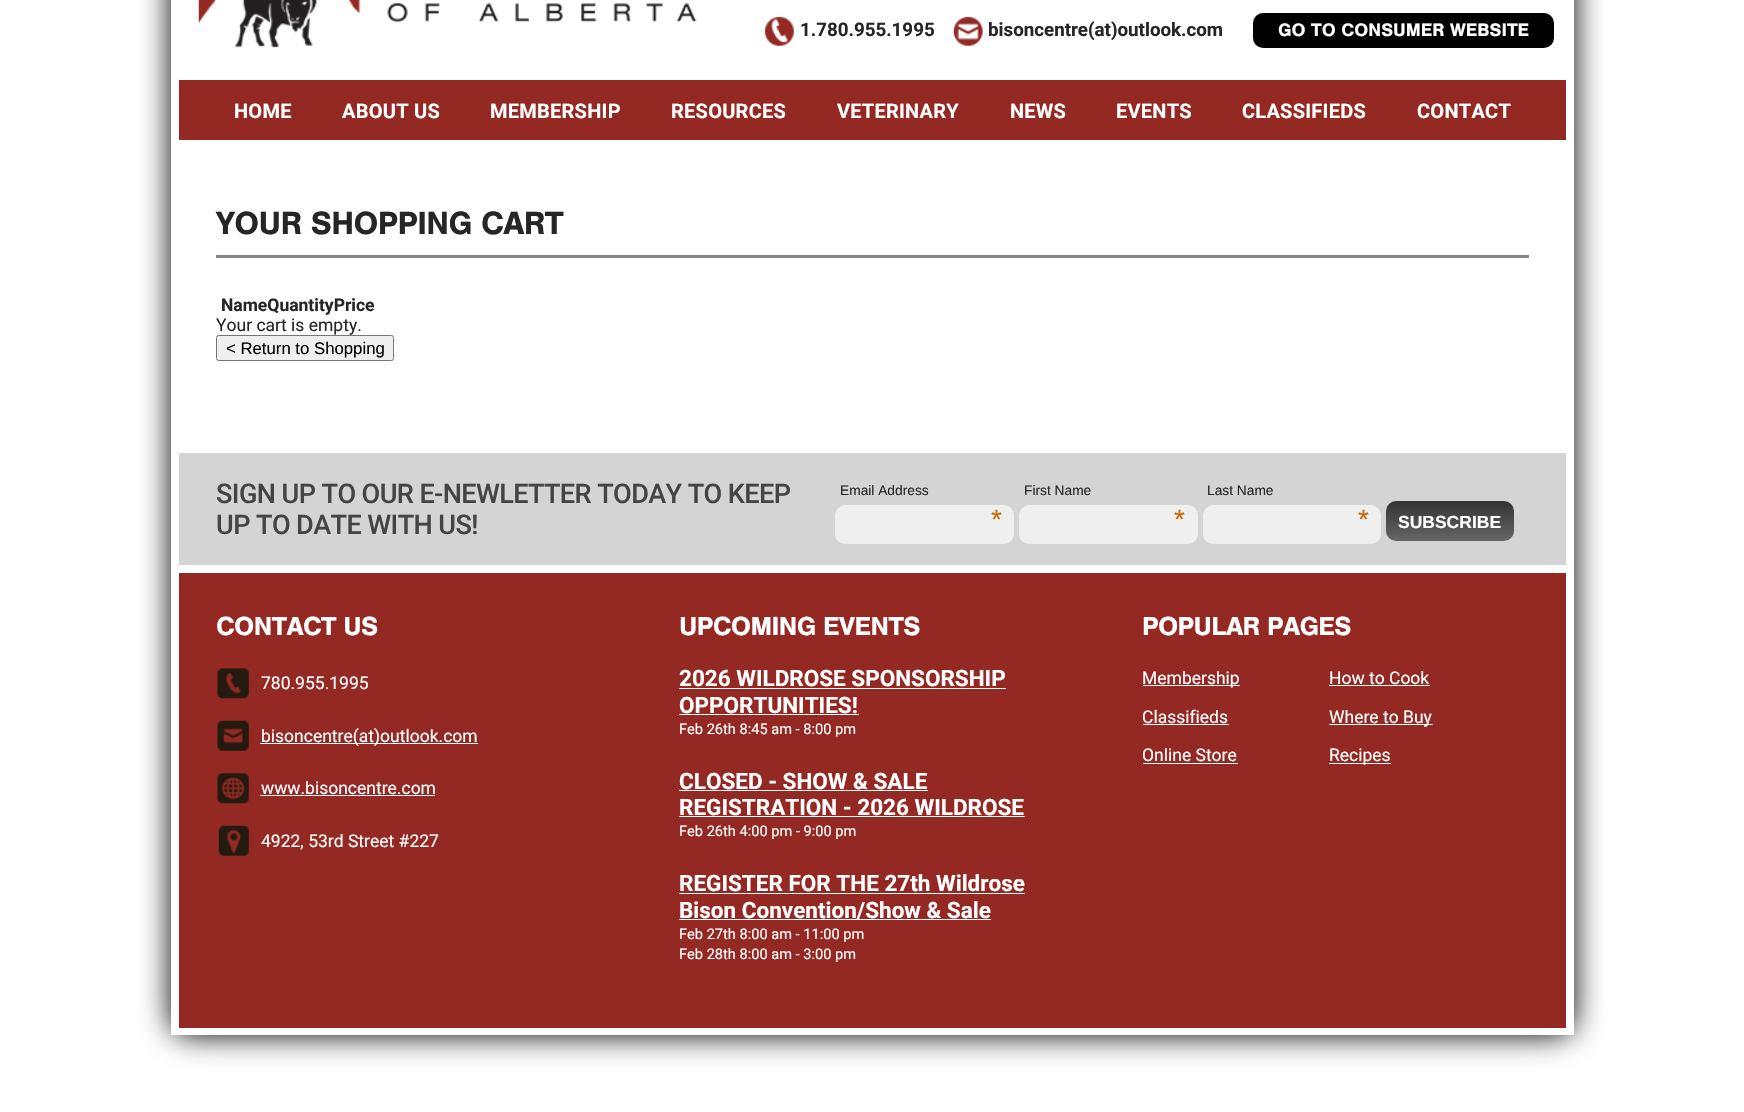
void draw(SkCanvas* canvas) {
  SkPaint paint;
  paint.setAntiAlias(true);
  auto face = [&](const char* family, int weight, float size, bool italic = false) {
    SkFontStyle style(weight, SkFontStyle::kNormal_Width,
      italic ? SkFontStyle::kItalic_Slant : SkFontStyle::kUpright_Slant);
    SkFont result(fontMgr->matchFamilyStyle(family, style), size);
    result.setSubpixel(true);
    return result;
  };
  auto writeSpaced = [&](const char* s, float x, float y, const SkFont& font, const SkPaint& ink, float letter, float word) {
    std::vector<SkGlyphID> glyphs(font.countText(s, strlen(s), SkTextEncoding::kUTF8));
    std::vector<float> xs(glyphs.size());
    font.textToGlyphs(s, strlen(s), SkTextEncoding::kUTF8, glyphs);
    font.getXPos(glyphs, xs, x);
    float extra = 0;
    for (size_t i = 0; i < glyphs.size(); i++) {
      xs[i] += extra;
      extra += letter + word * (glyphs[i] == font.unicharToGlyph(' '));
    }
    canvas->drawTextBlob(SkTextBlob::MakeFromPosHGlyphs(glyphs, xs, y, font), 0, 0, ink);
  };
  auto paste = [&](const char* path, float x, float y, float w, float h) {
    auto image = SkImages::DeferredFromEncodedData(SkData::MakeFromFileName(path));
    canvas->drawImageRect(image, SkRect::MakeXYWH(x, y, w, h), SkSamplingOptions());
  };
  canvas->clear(0xffffffff);
  paint.setColor(0xff000000);
  paint.setMaskFilter(SkMaskFilter::MakeBlur(kNormal_SkBlurStyle, 15.5f));
  canvas->drawRoundRect(SkRect::MakeXYWH(171, -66, 1403, 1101), 19, 19, paint);
  paint.setMaskFilter(nullptr);
  paint.setColor(0xffffffff);
  canvas->drawRect(SkRect::MakeXYWH(171, 0, 1403, 1035), paint);
  paste("img/1.png", 198, 0, 499, 48);
  paste("img/2.png", 764, 16, 30, 30);
  paste("img/3.png", 953, 16, 30, 30);
  paint.setColor(0xff000000);
  canvas->drawRoundRect(SkRect::MakeXYWH(1253, 13, 301, 35), 10, 10, paint);
  paint.setColor(0xff942923);
  canvas->drawRect(SkRect::MakeXYWH(179, 80, 1387, 60), paint);
  paint.setColor(0xff858585);
  canvas->drawRect(SkRect::MakeXYWH(216, 255, 1313, 3), paint);
  paint.setColor(0xffefefef);
  canvas->drawRoundRect(SkRect::MakeXYWH(216.5f, 335.5f, 177, 25), 2, 2, paint);
  paint.setStroke(true);
  paint.setStrokeWidth(1);
  paint.setColor(0xff767676);
  canvas->drawRoundRect(SkRect::MakeXYWH(216.5f, 335.5f, 177, 25), 2, 2, paint);
  paint.setStroke(false);
  paint.setColor(0xffd4d4d4);
  canvas->drawRect(SkRect::MakeXYWH(179, 453, 1387, 112), paint);
  paint.setColor(0xffefefef);
  canvas->drawRoundRect(SkRect::MakeXYWH(835, 505, 179, 39), 10, 10, paint);
  canvas->drawRoundRect(SkRect::MakeXYWH(1019, 505, 179, 39), 10, 10, paint);
  canvas->drawRoundRect(SkRect::MakeXYWH(1203, 505, 178, 39), 10, 10, paint);
  {
    const SkColor colors[] = {0xff333333, 0xff666666};
    const float stops[] = {0, 1};
    const SkPoint ends[] = {{1450, 501}, {1450, 541}};
    paint.setShader(SkGradientShader::MakeLinear(ends, colors, stops, 2, SkTileMode::kClamp));
    paint.setAlpha(255);
  }
  canvas->drawRoundRect(SkRect::MakeXYWH(1386, 501, 128, 40), 10, 10, paint);
  paint.setShader(nullptr);
  paint.setColor(0xff942923);
  canvas->drawRect(SkRect::MakeXYWH(179, 573, 1387, 455), paint);
  paste("img/4.png", 217, 668, 32, 31);
  paste("img/5.png", 217, 720, 32, 31);
  paint.setColor(0xffffffff);
  canvas->drawRect(SkRect::MakeXYWH(260, 743, 218, 1), paint);
  paste("img/6.png", 217, 773, 32, 31);
  canvas->drawRect(SkRect::MakeXYWH(260, 795, 175, 1), paint);
  paste("img/7.png", 218, 825, 31, 31);
  {
    const struct { float x, y, w, h; SkColor color; } items[] = {
      {679, 688, 327, 1, 0xffffffff},
      {679, 714, 180, 1, 0xffffffff},
      {679, 790, 249, 1, 0xffffffff},
      {679, 816, 346, 1, 0xffffffff},
      {679, 893, 346, 1, 0xffffffff},
      {679, 919, 312, 1, 0xffffffff},
      {1143, 685, 97, 1, 0xffffffff},
      {1143, 724, 86, 1, 0xffffffff},
      {1143, 763, 95, 1, 0xffffffff},
      {1329, 685, 101, 1, 0xffffffff},
      {1329, 724, 104, 1, 0xffffffff},
      {1329, 763, 62, 1, 0xffffffff},
    };
    for (auto [x, y, w, h, color] : items) {
      paint.setColor(color);
      canvas->drawRect(SkRect::MakeXYWH(x, y, w, h), paint);
    }
  }
  auto f0 = face("Roboto", 700, 18.75f);
  paint.setColor(0xff262626);
  canvas->drawString("1.780.955.1995", 800, 36, f0, paint);
  canvas->drawString("bisoncentre(at)outlook.com", 988, 36, f0, paint);
  auto f1 = face("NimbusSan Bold", 700, 18.75f);
  paint.setColor(0xffffffff);
  canvas->drawString("GO TO CONSUMER WEBSITE", 1278, 36, f1, paint);
  auto f2 = face("Roboto", 700, 20);
  {
    const struct { const char* s; float x, y; } items[] = {
      {"HOME", 234, 118},
      {"ABOUT US", 342, 118},
      {"MEMBERSHIP", 490, 118},
      {"RESOURCES", 671, 118},
      {"VETERINARY", 837, 118},
      {"NEWS", 1010, 118},
      {"EVENTS", 1116, 118},
      {"CLASSIFIEDS", 1242, 118},
      {"CONTACT", 1417, 118},
    };
    for (auto [s, x, y] : items) {
      writeSpaced(s, x, y, f2, paint, 0.25f, 0);
    }
  }
  auto f3 = face("NimbusSan Bold", 700, 33.25f);
  paint.setColor(0xff262626);
  writeSpaced("YOUR SHOPPING CART", 216, 234, f3, paint, -0.6f, 0);
  auto f4 = face("Roboto", 700, 17.5f);
  canvas->drawString("NameQuantityPrice", 221, 311, f4, paint);
  auto f5 = face("Roboto", 400, 17.5f);
  canvas->drawString("Your cart is empty.", 216, 331, f5, paint);
  auto f6 = face("Liberation Sans", 400, 16.75f);
  paint.setColor(0xff000000);
  canvas->drawString("< Return to Shopping", 226, 354, f6, paint);
  auto f7 = face("Roboto", 500, 27.1f);
  paint.setColor(0xff444444);
  writeSpaced("SIGN UP TO OUR E-NEWLETTER TODAY TO KEEP", 216, 503, f7, paint, -0.6f, 0);
  writeSpaced("UP TO DATE WITH US!", 216, 534, f7, paint, -0.6f, 0);
  auto f8 = face("Liberation Sans", 400, 13.75f);
  paint.setColor(0xff262626);
  canvas->drawString("Email Address", 840, 495, f8, paint);
  auto f9 = face("Liberation Sans", 400, 28);
  paint.setColor(0xffcc6600);
  canvas->drawString("*", 991, 529, f9, paint);
  paint.setColor(0xff262626);
  canvas->drawString("First Name", 1024, 495, f8, paint);
  paint.setColor(0xffcc6600);
  canvas->drawString("*", 1174, 529, f9, paint);
  paint.setColor(0xff262626);
  canvas->drawString("Last Name", 1207, 495, f8, paint);
  paint.setColor(0xffcc6600);
  canvas->drawString("*", 1358, 529, f9, paint);
  auto f10 = face("Liberation Sans", 700, 17.5f);
  paint.setColor(0xffffffff);
  canvas->drawString("SUBSCRIBE", 1398, 528, f10, paint);
  auto f11 = face("NimbusSan Bold", 700, 27.1f);
  writeSpaced("CONTACT US", 216, 635, f11, paint, -0.6f, 0);
  {
    const struct { const char* s; float x, y; } items[] = {
      {"780.955.1995", 261, 689},
      {"bisoncentre(at)outlook.com", 261, 742},
      {"www.bisoncentre.com", 261, 794},
      {"4922, 53rd Street #227", 261, 847},
    };
    for (auto [s, x, y] : items) {
      canvas->drawString(s, x, y, f5, paint);
    }
  }
  writeSpaced("UPCOMING EVENTS", 679, 635, f11, paint, -0.6f, 0);
  auto f12 = face("Roboto", 700, 22.5f);
  canvas->drawString("2026 WILDROSE SPONSORSHIP", 679, 686, f12, paint);
  canvas->drawString("OPPORTUNITIES!", 679, 713, f12, paint);
  auto f13 = face("Roboto", 400, 14.6f);
  canvas->drawString("Feb 26th 8:45 am - 8:00 pm", 679, 734, f13, paint);
  canvas->drawString("CLOSED - SHOW & SALE", 679, 789, f12, paint);
  canvas->drawString("REGISTRATION - 2026 WILDROSE", 679, 815, f12, paint);
  canvas->drawString("Feb 26th 4:00 pm - 9:00 pm", 679, 836, f13, paint);
  canvas->drawString("REGISTER FOR THE 27th Wildrose", 679, 891, f12, paint);
  canvas->drawString("Bison Convention/Show & Sale", 679, 918, f12, paint);
  canvas->drawString("Feb 27th 8:00 am - 11:00 pm", 679, 939, f13, paint);
  canvas->drawString("Feb 28th 8:00 am - 3:00 pm", 679, 959, f13, paint);
  writeSpaced("POPULAR PAGES", 1142, 635, f11, paint, -0.6f, 0);
  {
    const struct { const char* s; float x, y; } items[] = {
      {"Membership", 1142, 684},
      {"Classifieds", 1142, 723},
      {"Online Store", 1142, 761},
      {"How to Cook", 1329, 684},
      {"Where to Buy", 1329, 723},
      {"Recipes", 1329, 761},
    };
    for (auto [s, x, y] : items) {
      canvas->drawString(s, x, y, f5, paint);
    }
  }
}
